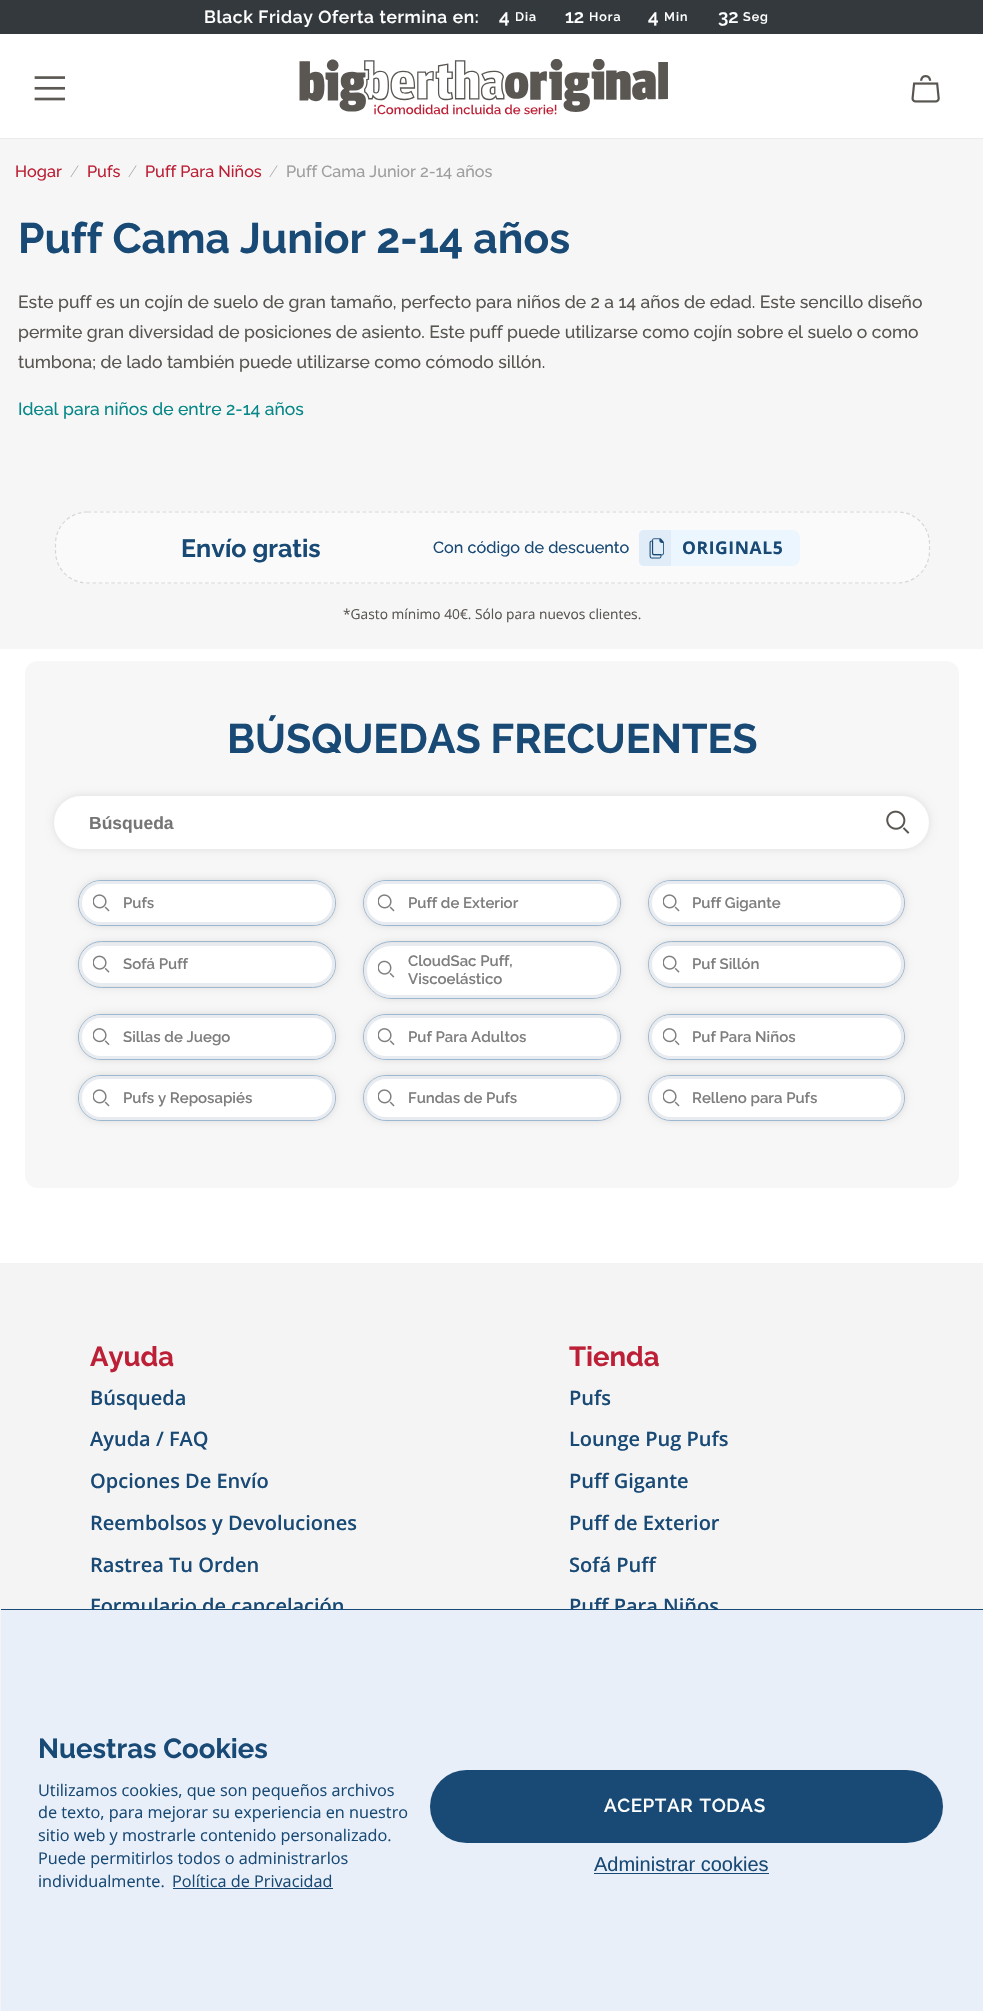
void draw(SkCanvas* canvas) {
  SkPaint paint;
  paint.setAntiAlias(true);
  auto face = [&](const char* family, int weight, float size, bool italic = false) {
    SkFontStyle style(weight, SkFontStyle::kNormal_Width,
      italic ? SkFontStyle::kItalic_Slant : SkFontStyle::kUpright_Slant);
    SkFont result(fontMgr->matchFamilyStyle(family, style), size);
    result.setSubpixel(true);
    return result;
  };
  auto writeSpaced = [&](const char* s, float x, float y, const SkFont& font, const SkPaint& ink, float letter, float word) {
    std::vector<SkGlyphID> glyphs(font.countText(s, strlen(s), SkTextEncoding::kUTF8));
    std::vector<float> xs(glyphs.size());
    font.textToGlyphs(s, strlen(s), SkTextEncoding::kUTF8, glyphs);
    font.getXPos(glyphs, xs, x);
    float extra = 0;
    for (size_t i = 0; i < glyphs.size(); i++) {
      xs[i] += extra;
      extra += letter + word * (glyphs[i] == font.unicharToGlyph(' '));
    }
    canvas->drawTextBlob(SkTextBlob::MakeFromPosHGlyphs(glyphs, xs, y, font), 0, 0, ink);
  };
  auto paste = [&](const char* path, float x, float y, float w, float h) {
    auto image = SkImages::DeferredFromEncodedData(SkData::MakeFromFileName(path));
    canvas->drawImageRect(image, SkRect::MakeXYWH(x, y, w, h), SkSamplingOptions());
  };
  auto shape = [&](const char* data, bool evenOdd = false) {
    SkPath result = *SkParsePath::FromSVGString(data);
    if (evenOdd) result.setFillType(SkPathFillType::kEvenOdd);
    return result;
  };
  canvas->clear(0xffffffff);
  paint.setColor(0xff34393d);
  canvas->drawRect(SkRect::MakeXYWH(0, 0, 983, 34), paint);
  paint.setColor(0xffebebeb);
  canvas->drawRect(SkRect::MakeXYWH(0, 138, 983, 1), paint);
  paste("img/1.png", 34, 76, 31, 25);
  paste("img/2.png", 299, 59, 369, 56);
  paste("img/3.png", 911, 75, 29, 28);
  paint.setColor(0xfff6f6f6);
  canvas->drawRect(SkRect::MakeXYWH(0, 139, 983, 510), paint);
  paint.setColor(0xfffafafa);
  canvas->drawRoundRect(SkRect::MakeXYWH(55, 511, 875, 73), 33, 33, paint);
  paint.setStroke(true);
  paint.setStrokeWidth(1.2f);
  paint.setColor(0xffd7d7d7);
  paint.setPathEffect(SkDashPathEffect::Make({{3.75f, 2.5f}}, 0));
  canvas->drawPath(shape("M87.5 512H897.5C915 512 929.5 526 929.5 544V551C929.5 569 915 583 897.5 583H87.5C70 583 55.5 569 55.5 551V544C55.5 526 70 512 87.5 512Z"), paint);
  paint.setPathEffect(nullptr);
  paint.setStroke(false);
  paint.setColor(0xffecf6ff);
  canvas->drawRoundRect(SkRect::MakeXYWH(639, 530, 161, 36), 8, 8, paint);
  paint.setColor(0xffe0edf9);
  canvas->drawPath(shape("M644 530H671V566H644C641 566 639 564 639 561V535C639 532 641 530 644 530Z"), paint);
  paste("img/4.png", 649, 538, 15, 21);
  paint.setColor(0xfff7f7f7);
  canvas->drawRoundRect(SkRect::MakeXYWH(25, 661, 934, 527), 13, 13, paint);
  paint.setColor(0x1a000000);
  paint.setMaskFilter(SkMaskFilter::MakeBlur(kNormal_SkBlurStyle, 4));
  canvas->drawRoundRect(SkRect::MakeXYWH(54, 796, 875, 53), 26.5f, 26.5f, paint);
  paint.setMaskFilter(nullptr);
  paint.setColor(0xffffffff);
  canvas->drawRoundRect(SkRect::MakeXYWH(54, 796, 875, 53), 26.5f, 26.5f, paint);
  paste("img/5.png", 886, 810, 24, 24);
  paint.setColor(0xffd1d1d1);
  paint.setMaskFilter(SkMaskFilter::MakeBlur(kNormal_SkBlurStyle, 4));
  canvas->drawRoundRect(SkRect::MakeXYWH(79, 881, 256, 44), 22, 22, paint);
  paint.setMaskFilter(nullptr);
  paint.setStroke(true);
  paint.setStrokeWidth(1);
  paint.setColor(0xff9cb8d1);
  canvas->drawRoundRect(SkRect::MakeXYWH(78.5f, 880.5f, 257, 45), 22.5f, 22.5f, paint);
  paint.setStroke(false);
  paint.setColor(0xffffffff);
  canvas->drawRoundRect(SkRect::MakeXYWH(80.5f, 882.5f, 253, 41), 20.5f, 20.5f, paint);
  paint.setStroke(true);
  paint.setStrokeWidth(3);
  paint.setColor(0xffe8ecf1);
  canvas->drawRoundRect(SkRect::MakeXYWH(80.5f, 882.5f, 253, 41), 20.5f, 20.5f, paint);
  paste("img/6.png", 93, 894, 17, 18);
  paint.setStroke(false);
  paint.setColor(0xffd1d1d1);
  paint.setMaskFilter(SkMaskFilter::MakeBlur(kNormal_SkBlurStyle, 4));
  canvas->drawRoundRect(SkRect::MakeXYWH(364, 881, 256, 44), 22, 22, paint);
  paint.setMaskFilter(nullptr);
  paint.setStroke(true);
  paint.setStrokeWidth(1);
  paint.setColor(0xff9cb8d1);
  canvas->drawRoundRect(SkRect::MakeXYWH(363.5f, 880.5f, 257, 45), 22.5f, 22.5f, paint);
  paint.setStroke(false);
  paint.setColor(0xffffffff);
  canvas->drawRoundRect(SkRect::MakeXYWH(365.5f, 882.5f, 253, 41), 20.5f, 20.5f, paint);
  paint.setStroke(true);
  paint.setStrokeWidth(3);
  paint.setColor(0xffe8ecf1);
  canvas->drawRoundRect(SkRect::MakeXYWH(365.5f, 882.5f, 253, 41), 20.5f, 20.5f, paint);
  paste("img/6.png", 378, 894, 17, 18);
  paint.setStroke(false);
  paint.setColor(0xffd1d1d1);
  paint.setMaskFilter(SkMaskFilter::MakeBlur(kNormal_SkBlurStyle, 4));
  canvas->drawRoundRect(SkRect::MakeXYWH(649, 881, 255, 44), 22, 22, paint);
  paint.setMaskFilter(nullptr);
  paint.setStroke(true);
  paint.setStrokeWidth(1);
  paint.setColor(0xff9cb8d1);
  canvas->drawRoundRect(SkRect::MakeXYWH(648.5f, 880.5f, 256, 45), 22.5f, 22.5f, paint);
  paint.setStroke(false);
  paint.setColor(0xffffffff);
  canvas->drawRoundRect(SkRect::MakeXYWH(650.5f, 882.5f, 252, 41), 20.5f, 20.5f, paint);
  paint.setStroke(true);
  paint.setStrokeWidth(3);
  paint.setColor(0xffe8ecf1);
  canvas->drawRoundRect(SkRect::MakeXYWH(650.5f, 882.5f, 252, 41), 20.5f, 20.5f, paint);
  paste("img/6.png", 663, 894, 17, 18);
  paint.setStroke(false);
  paint.setColor(0xffd1d1d1);
  paint.setMaskFilter(SkMaskFilter::MakeBlur(kNormal_SkBlurStyle, 4));
  canvas->drawRoundRect(SkRect::MakeXYWH(79, 943, 256, 43), 21.5f, 21.5f, paint);
  paint.setMaskFilter(nullptr);
  paint.setStroke(true);
  paint.setStrokeWidth(1);
  paint.setColor(0xff9cb8d1);
  canvas->drawRoundRect(SkRect::MakeXYWH(78.5f, 941.5f, 257, 46), 23, 23, paint);
  paint.setStroke(false);
  paint.setColor(0xffffffff);
  canvas->drawRoundRect(SkRect::MakeXYWH(80.5f, 944.5f, 253, 40), 20, 20, paint);
  paint.setStroke(true);
  paint.setStrokeWidth(3);
  paint.setColor(0xffe8ecf1);
  canvas->drawRoundRect(SkRect::MakeXYWH(80.5f, 944.5f, 253, 40), 20, 20, paint);
  paste("img/7.png", 93, 955, 17, 18);
  paint.setStroke(false);
  paint.setColor(0xffd1d1d1);
  paint.setMaskFilter(SkMaskFilter::MakeBlur(kNormal_SkBlurStyle, 4));
  canvas->drawRoundRect(SkRect::MakeXYWH(364, 943, 256, 55), 27.5f, 27.5f, paint);
  paint.setMaskFilter(nullptr);
  paint.setStroke(true);
  paint.setStrokeWidth(1);
  paint.setColor(0xff9cb8d1);
  canvas->drawRoundRect(SkRect::MakeXYWH(363.5f, 941.5f, 257, 57), 28.5f, 28.5f, paint);
  paint.setStroke(false);
  paint.setColor(0xffffffff);
  canvas->drawRoundRect(SkRect::MakeXYWH(365.5f, 944.5f, 253, 52), 26, 26, paint);
  paint.setStroke(true);
  paint.setStrokeWidth(3);
  paint.setColor(0xffe8ecf1);
  canvas->drawRoundRect(SkRect::MakeXYWH(365.5f, 944.5f, 253, 52), 26, 26, paint);
  paste("img/8.png", 378, 960, 17, 18);
  paint.setStroke(false);
  paint.setColor(0xffd1d1d1);
  paint.setMaskFilter(SkMaskFilter::MakeBlur(kNormal_SkBlurStyle, 4));
  canvas->drawRoundRect(SkRect::MakeXYWH(649, 943, 255, 43), 21.5f, 21.5f, paint);
  paint.setMaskFilter(nullptr);
  paint.setStroke(true);
  paint.setStrokeWidth(1);
  paint.setColor(0xff9cb8d1);
  canvas->drawRoundRect(SkRect::MakeXYWH(648.5f, 941.5f, 256, 46), 23, 23, paint);
  paint.setStroke(false);
  paint.setColor(0xffffffff);
  canvas->drawRoundRect(SkRect::MakeXYWH(650.5f, 944.5f, 252, 40), 20, 20, paint);
  paint.setStroke(true);
  paint.setStrokeWidth(3);
  paint.setColor(0xffe8ecf1);
  canvas->drawRoundRect(SkRect::MakeXYWH(650.5f, 944.5f, 252, 40), 20, 20, paint);
  paste("img/7.png", 663, 955, 17, 18);
  paint.setStroke(false);
  paint.setColor(0xffd1d1d1);
  paint.setMaskFilter(SkMaskFilter::MakeBlur(kNormal_SkBlurStyle, 4));
  canvas->drawRoundRect(SkRect::MakeXYWH(79, 1015, 256, 44), 22, 22, paint);
  paint.setMaskFilter(nullptr);
  paint.setStroke(true);
  paint.setStrokeWidth(1);
  paint.setColor(0xff9cb8d1);
  canvas->drawRoundRect(SkRect::MakeXYWH(78.5f, 1014.5f, 257, 45), 22.5f, 22.5f, paint);
  paint.setStroke(false);
  paint.setColor(0xffffffff);
  canvas->drawRoundRect(SkRect::MakeXYWH(80.5f, 1016.5f, 253, 41), 20.5f, 20.5f, paint);
  paint.setStroke(true);
  paint.setStrokeWidth(3);
  paint.setColor(0xffe8ecf1);
  canvas->drawRoundRect(SkRect::MakeXYWH(80.5f, 1016.5f, 253, 41), 20.5f, 20.5f, paint);
  paste("img/9.png", 93, 1028, 17, 18);
  paint.setStroke(false);
  paint.setColor(0xffd1d1d1);
  paint.setMaskFilter(SkMaskFilter::MakeBlur(kNormal_SkBlurStyle, 4));
  canvas->drawRoundRect(SkRect::MakeXYWH(364, 1015, 256, 44), 22, 22, paint);
  paint.setMaskFilter(nullptr);
  paint.setStroke(true);
  paint.setStrokeWidth(1);
  paint.setColor(0xff9cb8d1);
  canvas->drawRoundRect(SkRect::MakeXYWH(363.5f, 1014.5f, 257, 45), 22.5f, 22.5f, paint);
  paint.setStroke(false);
  paint.setColor(0xffffffff);
  canvas->drawRoundRect(SkRect::MakeXYWH(365.5f, 1016.5f, 253, 41), 20.5f, 20.5f, paint);
  paint.setStroke(true);
  paint.setStrokeWidth(3);
  paint.setColor(0xffe8ecf1);
  canvas->drawRoundRect(SkRect::MakeXYWH(365.5f, 1016.5f, 253, 41), 20.5f, 20.5f, paint);
  paste("img/9.png", 378, 1028, 17, 18);
  paint.setStroke(false);
  paint.setColor(0xffd1d1d1);
  paint.setMaskFilter(SkMaskFilter::MakeBlur(kNormal_SkBlurStyle, 4));
  canvas->drawRoundRect(SkRect::MakeXYWH(649, 1015, 255, 44), 22, 22, paint);
  paint.setMaskFilter(nullptr);
  paint.setStroke(true);
  paint.setStrokeWidth(1);
  paint.setColor(0xff9cb8d1);
  canvas->drawRoundRect(SkRect::MakeXYWH(648.5f, 1014.5f, 256, 45), 22.5f, 22.5f, paint);
  paint.setStroke(false);
  paint.setColor(0xffffffff);
  canvas->drawRoundRect(SkRect::MakeXYWH(650.5f, 1016.5f, 252, 41), 20.5f, 20.5f, paint);
  paint.setStroke(true);
  paint.setStrokeWidth(3);
  paint.setColor(0xffe8ecf1);
  canvas->drawRoundRect(SkRect::MakeXYWH(650.5f, 1016.5f, 252, 41), 20.5f, 20.5f, paint);
  paste("img/9.png", 663, 1028, 17, 18);
  paint.setStroke(false);
  paint.setColor(0xffd1d1d1);
  paint.setMaskFilter(SkMaskFilter::MakeBlur(kNormal_SkBlurStyle, 4));
  canvas->drawRoundRect(SkRect::MakeXYWH(79, 1076, 256, 44), 22, 22, paint);
  paint.setMaskFilter(nullptr);
  paint.setStroke(true);
  paint.setStrokeWidth(1);
  paint.setColor(0xff9cb8d1);
  canvas->drawRoundRect(SkRect::MakeXYWH(78.5f, 1075.5f, 257, 45), 22.5f, 22.5f, paint);
  paint.setStroke(false);
  paint.setColor(0xffffffff);
  canvas->drawRoundRect(SkRect::MakeXYWH(80.5f, 1077.5f, 253, 41), 20.5f, 20.5f, paint);
  paint.setStroke(true);
  paint.setStrokeWidth(3);
  paint.setColor(0xffe8ecf1);
  canvas->drawRoundRect(SkRect::MakeXYWH(80.5f, 1077.5f, 253, 41), 20.5f, 20.5f, paint);
  paste("img/6.png", 93, 1089, 17, 18);
  paint.setStroke(false);
  paint.setColor(0xffd1d1d1);
  paint.setMaskFilter(SkMaskFilter::MakeBlur(kNormal_SkBlurStyle, 4));
  canvas->drawRoundRect(SkRect::MakeXYWH(364, 1076, 256, 44), 22, 22, paint);
  paint.setMaskFilter(nullptr);
  paint.setStroke(true);
  paint.setStrokeWidth(1);
  paint.setColor(0xff9cb8d1);
  canvas->drawRoundRect(SkRect::MakeXYWH(363.5f, 1075.5f, 257, 45), 22.5f, 22.5f, paint);
  paint.setStroke(false);
  paint.setColor(0xffffffff);
  canvas->drawRoundRect(SkRect::MakeXYWH(365.5f, 1077.5f, 253, 41), 20.5f, 20.5f, paint);
  paint.setStroke(true);
  paint.setStrokeWidth(3);
  paint.setColor(0xffe8ecf1);
  canvas->drawRoundRect(SkRect::MakeXYWH(365.5f, 1077.5f, 253, 41), 20.5f, 20.5f, paint);
  paste("img/6.png", 378, 1089, 17, 18);
  paint.setStroke(false);
  paint.setColor(0xffd1d1d1);
  paint.setMaskFilter(SkMaskFilter::MakeBlur(kNormal_SkBlurStyle, 4));
  canvas->drawRoundRect(SkRect::MakeXYWH(649, 1076, 255, 44), 22, 22, paint);
  paint.setMaskFilter(nullptr);
  paint.setStroke(true);
  paint.setStrokeWidth(1);
  paint.setColor(0xff9cb8d1);
  canvas->drawRoundRect(SkRect::MakeXYWH(648.5f, 1075.5f, 256, 45), 22.5f, 22.5f, paint);
  paint.setStroke(false);
  paint.setColor(0xffffffff);
  canvas->drawRoundRect(SkRect::MakeXYWH(650.5f, 1077.5f, 252, 41), 20.5f, 20.5f, paint);
  paint.setStroke(true);
  paint.setStrokeWidth(3);
  paint.setColor(0xffe8ecf1);
  canvas->drawRoundRect(SkRect::MakeXYWH(650.5f, 1077.5f, 252, 41), 20.5f, 20.5f, paint);
  paste("img/6.png", 663, 1089, 17, 18);
  paint.setStroke(false);
  paint.setColor(0xfff4f4f4);
  canvas->drawRect(SkRect::MakeXYWH(0, 1263, 983, 748), paint);
  paint.setColor(0xff194a75);
  canvas->drawRect(SkRect::MakeXYWH(1, 1609, 982, 1), paint);
  auto f0 = face("Raleway", 600, 17.5f);
  paint.setColor(0xffffffff);
  writeSpaced("Black Friday Oferta termina en:", 204, 23, f0, paint, 0.6f, 0);
  auto f1 = face("Raleway", 600, 18.75f);
  canvas->drawString("4", 499, 23, f1, paint);
  auto f2 = face("Raleway", 600, 12.5f);
  writeSpaced("Dia", 515, 21, f2, paint, 1, 0);
  canvas->drawString("12", 565, 23, f1, paint);
  writeSpaced("Hora", 589, 21, f2, paint, 1, 0);
  canvas->drawString("4", 648, 23, f1, paint);
  writeSpaced("Min", 664, 21, f2, paint, 1, 0);
  canvas->drawString("32", 718, 23, f1, paint);
  writeSpaced("Seg", 743, 21, f2, paint, 1, 0);
  auto f3 = face("Raleway", 500, 16.25f);
  paint.setColor(0xffbd2036);
  canvas->drawString("Hogar", 15, 177, f3, paint);
  auto f4 = face("Raleway", 200, 16.25f);
  paint.setColor(0xff9e9e9e);
  canvas->drawString("/", 70, 177, f4, paint);
  paint.setColor(0xffbd2036);
  canvas->drawString("Pufs", 87, 177, f3, paint);
  paint.setColor(0xff9e9e9e);
  canvas->drawString("/", 128, 177, f4, paint);
  paint.setColor(0xffbd2036);
  canvas->drawString("Puff Para Niños", 145, 177, f3, paint);
  paint.setColor(0xff9e9e9e);
  canvas->drawString("/", 269, 177, f4, paint);
  canvas->drawString("Puff Cama Junior 2-14 años", 286, 177, f3, paint);
  auto f5 = face("Raleway", 700, 42.5f);
  paint.setColor(0xff194a75);
  canvas->drawString("Puff Cama Junior 2-14 años", 18, 253, f5, paint);
  auto f6 = face("Raleway", 500, 17.5f);
  paint.setColor(0xff595551);
  {
    const struct { const char* s; float x, y; } items[] = {
      {"Este puff es un cojín de suelo de gran tamaño, perfecto para niños de 2 a 14 años de edad. Este sencillo diseño", 18, 308},
      {"permite gran diversidad de posiciones de asiento. Este puff puede utilizarse como cojín sobre el suelo o como", 18, 338},
      {"tumbona; de lado también puede utilizarse como cómodo sillón.", 18, 368},
    };
    for (auto [s, x, y] : items) {
      canvas->drawString(s, x, y, f6, paint);
    }
  }
  paint.setColor(0xff078787);
  canvas->drawString("Ideal para niños de entre 2-14 años", 18, 415, f6, paint);
  auto f7 = face("Raleway", 700, 25);
  paint.setColor(0xff194a75);
  canvas->drawString("Envío gratis", 181, 557, f7, paint);
  canvas->drawString("Con código de descuento", 433, 553, f3, paint);
  auto f8 = face("Open Sans", 700, 17.5f);
  writeSpaced("ORIGINAL5", 682, 554, f8, paint, 0.6f, 0);
  auto f9 = face("Open Sans", 400, 13.75f);
  paint.setColor(0xff595551);
  canvas->drawString("*Gasto mínimo 40€. Sólo para nuevos clientes.", 343, 619, f9, paint);
  auto f10 = face("Raleway", 700, 41.25f);
  paint.setColor(0xff194a75);
  canvas->drawString("BÚSQUEDAS FRECUENTES", 227, 753, f10, paint);
  auto f11 = face("Liberation Sans", 700, 17.5f);
  paint.setColor(0xff757575);
  canvas->drawString("Búsqueda", 89, 829, f11, paint);
  auto f12 = face("Raleway", 600, 15);
  paint.setColor(0xff7e7e7e);
  {
    const struct { const char* s; float x, y; } items[] = {
      {"Pufs", 123, 908},
      {"Puff de Exterior", 408, 908},
      {"Puff Gigante", 692, 908},
      {"Sofá Puff", 123, 969},
      {"CloudSac Puff,", 408, 966},
      {"Viscoelástico", 408, 984},
      {"Puf Sillón", 692, 969},
      {"Sillas de Juego", 123, 1042},
      {"Puf Para Adultos", 408, 1042},
      {"Puf Para Niños", 692, 1042},
      {"Pufs y Reposapiés", 123, 1103},
      {"Fundas de Pufs", 408, 1103},
      {"Relleno para Pufs", 692, 1103},
    };
    for (auto [s, x, y] : items) {
      canvas->drawString(s, x, y, f12, paint);
    }
  }
  auto f13 = face("Raleway", 700, 27.5f);
  paint.setColor(0xffbd2036);
  canvas->drawString("Ayuda", 90, 1366, f13, paint);
  auto f14 = face("Open Sans", 600, 20);
  paint.setColor(0xff194a75);
  {
    const struct { const char* s; float x, y; } items[] = {
      {"Búsqueda", 90, 1405},
      {"Ayuda / FAQ", 90, 1446},
      {"Opciones De Envío", 90, 1488},
      {"Reembolsos y Devoluciones", 90, 1530},
      {"Rastrea Tu Orden", 90, 1572},
      {"Formulario de cancelación", 90, 1613},
    };
    for (auto [s, x, y] : items) {
      canvas->drawString(s, x, y, f14, paint);
    }
  }
  paint.setColor(0xffbd2036);
  canvas->drawString("Tienda", 569, 1366, f13, paint);
  paint.setColor(0xff194a75);
  {
    const struct { const char* s; float x, y; } items[] = {
      {"Pufs", 569, 1405},
      {"Lounge Pug Pufs", 569, 1446},
      {"Puff Gigante", 569, 1488},
      {"Puff de Exterior", 569, 1530},
      {"Sofá Puff", 569, 1572},
      {"Puff Para Niños", 569, 1613},
    };
    for (auto [s, x, y] : items) {
      canvas->drawString(s, x, y, f14, paint);
    }
  }
  paint.setColor(0xffe8eff9);
  canvas->drawRect(SkRect::MakeXYWH(1, 1610, 982, 401), paint);
  paint.setColor(0xff194a75);
  canvas->drawString("Nuestras Cookies", 38, 1758, f13, paint);
  auto f15 = face("Open Sans", 400, 16.25f);
  {
    const struct { const char* s; float x, y; } items[] = {
      {"Utilizamos cookies, que son pequeños archivos", 38, 1796},
      {"de texto, para mejorar su experiencia en nuestro", 38, 1818},
      {"sitio web y mostrarle contenido personalizado.", 38, 1841},
      {"Puede permitirlos todos o administrarlos", 38, 1864},
      {"individualmente.", 38, 1887},
      {"Política de Privacidad", 172, 1887},
    };
    for (auto [s, x, y] : items) {
      canvas->drawString(s, x, y, f15, paint);
    }
  }
  paint.setColor(0xff1b4975);
  canvas->drawRect(SkRect::MakeXYWH(173, 1888, 160, 1), paint);
  paint.setColor(0xff194a75);
  canvas->drawRoundRect(SkRect::MakeXYWH(430, 1770, 513, 73), 36.5f, 36.5f, paint);
  paint.setColor(0xffffffff);
  writeSpaced("ACEPTAR TODAS", 604, 1812, f1, paint, 0.6f, 1);
  auto f16 = face("Liberation Sans", 400, 20);
  paint.setColor(0xff194a75);
  canvas->drawString("Administrar cookies", 594, 1871, f16, paint);
  paint.setColor(0xff1b4975);
  canvas->drawRect(SkRect::MakeXYWH(594, 1873, 175, 1), paint);
}
